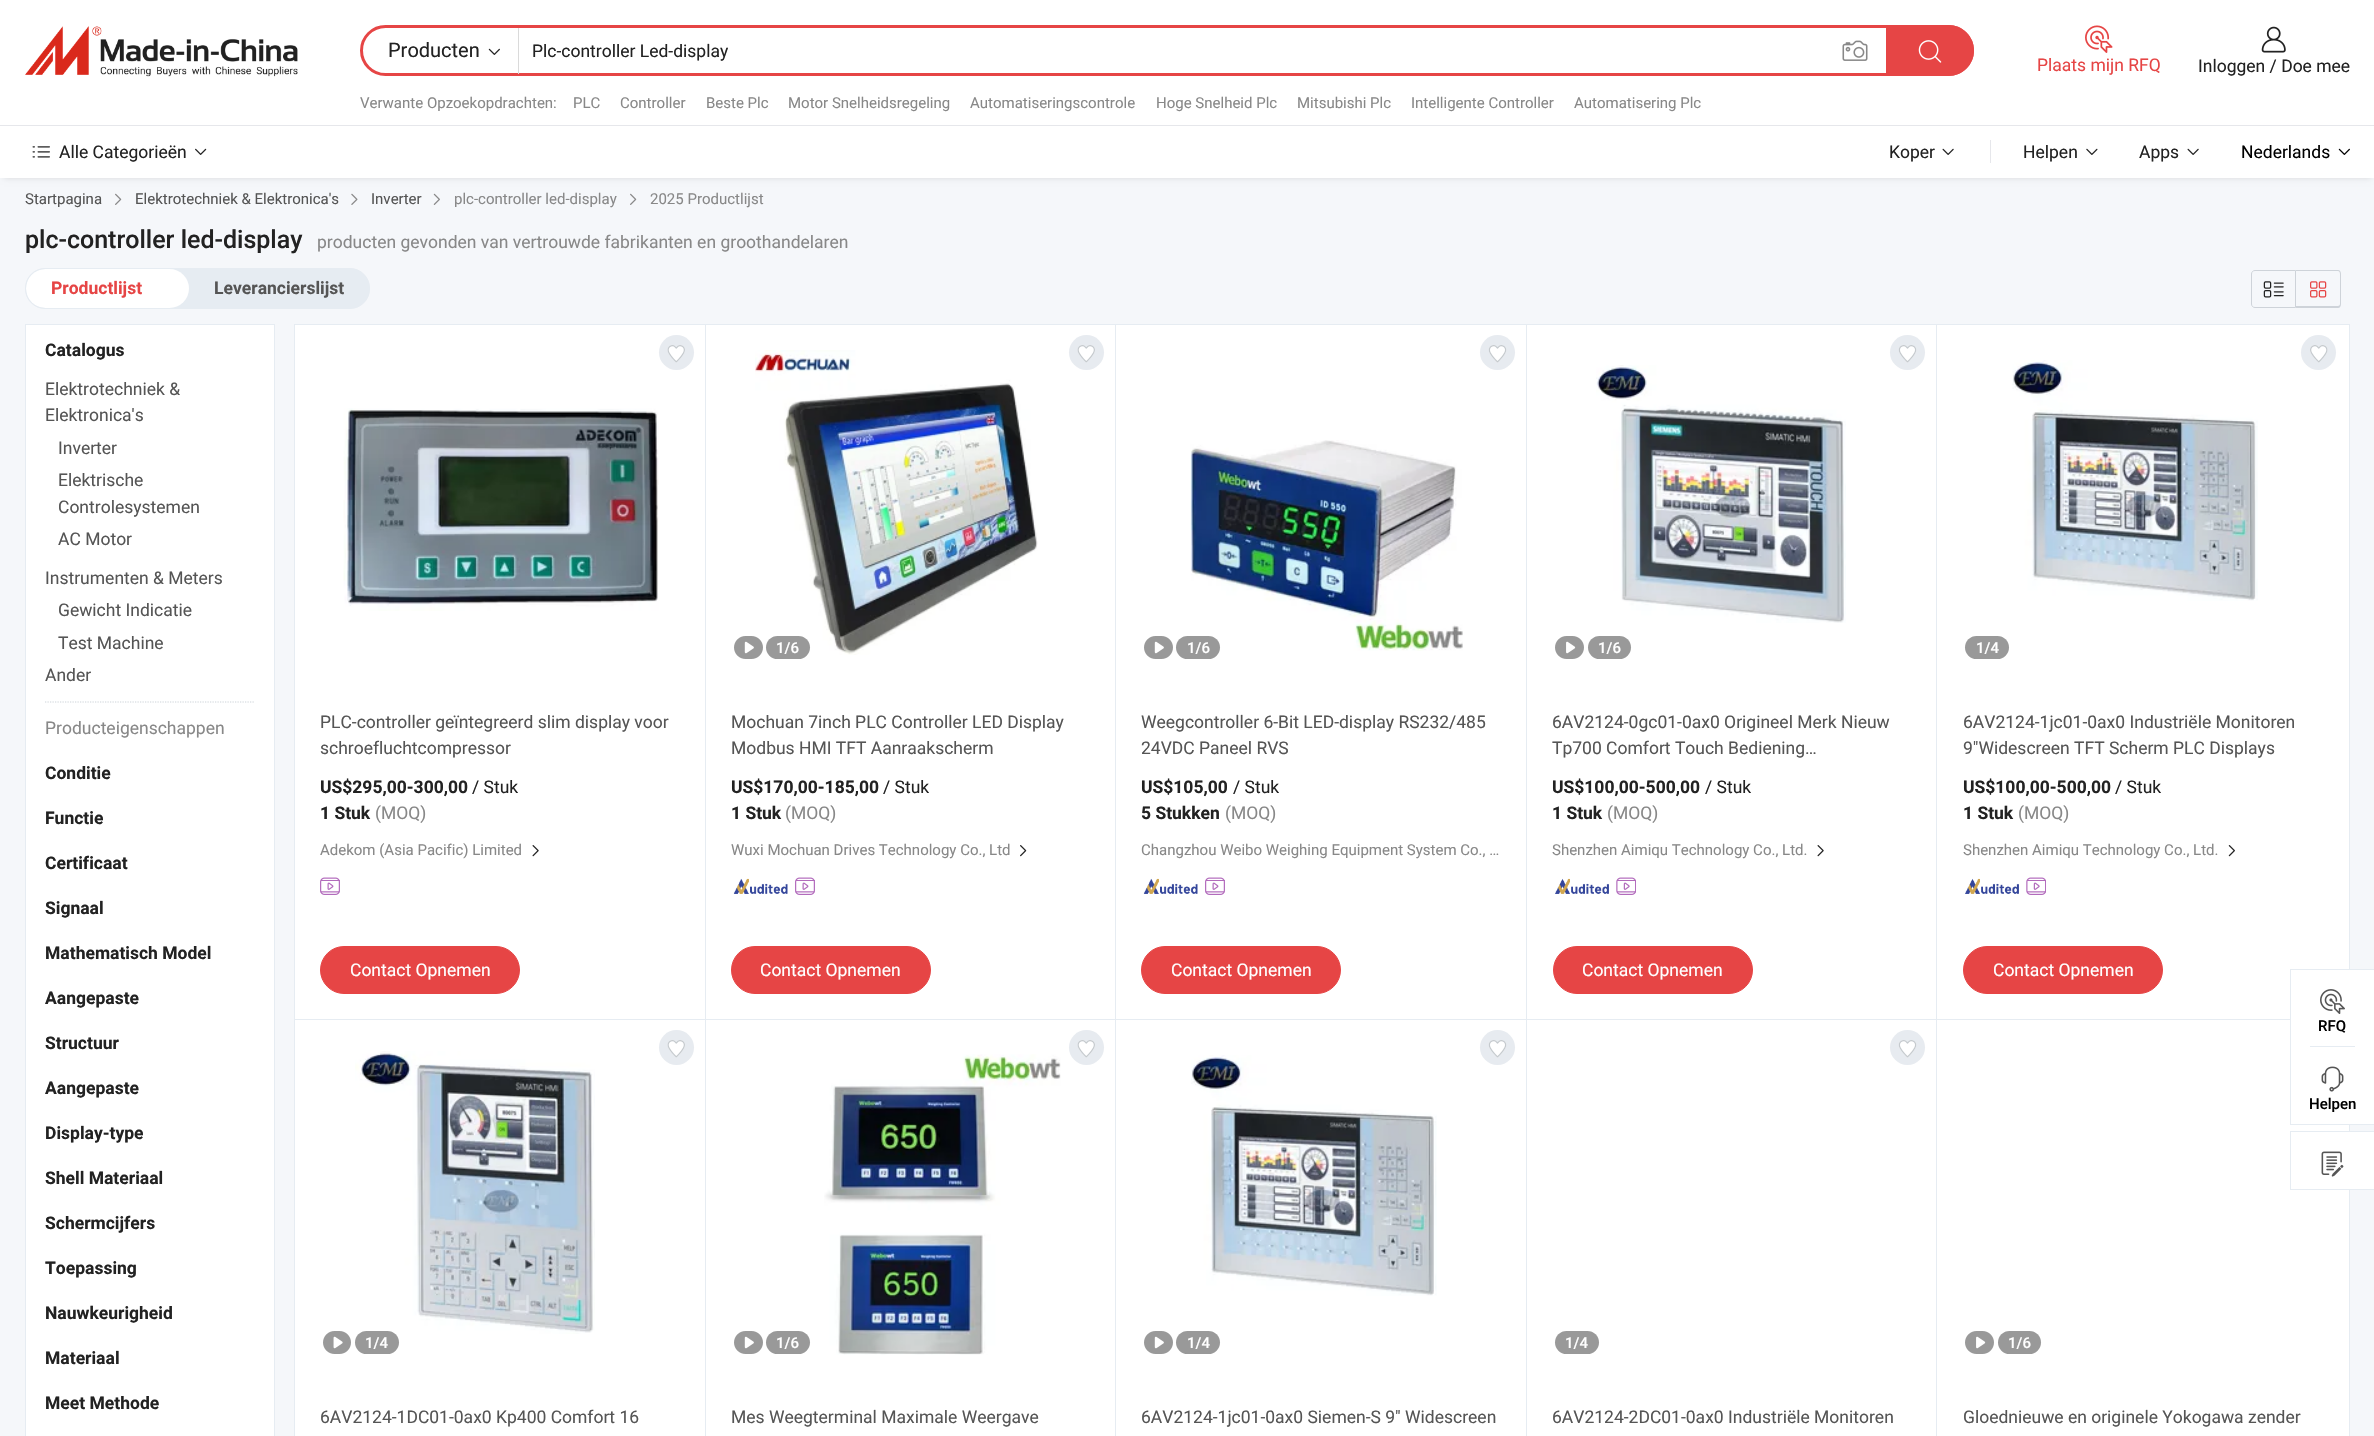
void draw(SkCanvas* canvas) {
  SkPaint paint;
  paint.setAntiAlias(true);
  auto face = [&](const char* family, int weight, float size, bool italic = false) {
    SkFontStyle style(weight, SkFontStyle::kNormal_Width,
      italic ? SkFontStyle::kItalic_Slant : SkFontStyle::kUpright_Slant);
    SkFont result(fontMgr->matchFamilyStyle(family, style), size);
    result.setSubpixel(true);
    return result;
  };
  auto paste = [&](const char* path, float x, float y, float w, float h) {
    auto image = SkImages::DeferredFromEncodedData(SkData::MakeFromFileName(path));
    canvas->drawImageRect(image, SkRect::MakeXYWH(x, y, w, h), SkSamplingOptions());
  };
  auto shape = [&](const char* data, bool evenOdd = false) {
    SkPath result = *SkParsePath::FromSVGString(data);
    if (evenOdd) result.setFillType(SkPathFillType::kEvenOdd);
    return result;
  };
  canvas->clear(0xfff5f7fa);
  paint.setColor(0x1f000000);
  paint.setMaskFilter(SkMaskFilter::MakeBlur(kNormal_SkBlurStyle, 3));
  canvas->drawRect(SkRect::MakeXYWH(4, 8, 2367, 170), paint);
  paint.setMaskFilter(nullptr);
  paint.setColor(0xffffffff);
  canvas->drawRect(SkRect::MakeXYWH(0, 0, 2374, 178), paint);
  paste("img/1.png", 25, 26, 273, 51);
  paint.setStroke(true);
  paint.setStrokeWidth(3);
  paint.setColor(0xffe64545);
  canvas->drawRoundRect(SkRect::MakeXYWH(361.5f, 26.5f, 1611, 48), 24, 24, paint);
  paint.setStroke(false);
  paint.setColor(0xffdadada);
  canvas->drawRect(SkRect::MakeXYWH(518, 28, 1, 46), paint);
  paste("img/2.png", 488, 48, 12, 7);
  paste("img/3.png", 1842, 40, 26, 21);
  paint.setColor(0xffe64545);
  canvas->drawPath(shape("M1886 25H1948.5C1962.5 25 1974 36.5 1974 50.5C1974 64.5 1962.5 76 1948.5 76H1886Z"), paint);
  paste("img/4.png", 1918, 40, 24, 23);
  paste("img/5.png", 2085, 25, 28, 28);
  paste("img/6.png", 2261, 26, 25, 27);
  paint.setColor(0xffe6e7eb);
  canvas->drawRect(SkRect::MakeXYWH(0, 125, 2374, 1), paint);
  paste("img/7.png", 32, 146, 18, 12);
  paste("img/8.png", 195, 148, 12, 7);
  paste("img/9.png", 1942, 148, 12, 7);
  canvas->drawRect(SkRect::MakeXYWH(1990, 140, 1, 23), paint);
  paste("img/10.png", 2086, 148, 12, 7);
  paste("img/9.png", 2187, 148, 12, 7);
  paste("img/11.png", 2338, 148, 12, 7);
  paste("img/12.png", 115, 193, 7, 12);
  paste("img/13.png", 351, 193, 7, 12);
  paste("img/14.png", 433, 193, 7, 12);
  paste("img/12.png", 630, 193, 7, 12);
  paint.setColor(0xffe6ecf2);
  canvas->drawRoundRect(SkRect::MakeXYWH(25.5f, 268.5f, 344, 40), 19.5f, 19.5f, paint);
  paint.setStroke(true);
  paint.setStrokeWidth(1);
  canvas->drawRoundRect(SkRect::MakeXYWH(25.5f, 268.5f, 344, 40), 19.5f, 19.5f, paint);
  canvas->save();
  canvas->clipPath(shape("M45 269H350C360.5 269 369 277.5 369 288V289C369 299.5 360.5 308 350 308H45C34.5 308 26 299.5 26 289V288C26 277.5 34.5 269 45 269Z"), true);
  paint.setStroke(false);
  paint.setColor(0xffffffff);
  canvas->drawRoundRect(SkRect::MakeXYWH(26, 269, 163, 39), 19.5f, 19.5f, paint);
  canvas->restore();
  paint.setStroke(true);
  paint.setColor(0xffced3d9);
  canvas->drawPath(shape("M2255 270.5H2295.5V307.5H2255C2253 307.5 2251.5 306 2251.5 304V274C2251.5 272 2253 270.5 2255 270.5Z"), paint);
  paste("img/15.png", 2263, 281, 21, 17);
  paint.setStroke(false);
  canvas->drawPath(shape("M2296 270H2338C2340 270 2341 272 2341 274V304C2341 306 2340 308 2338 308H2296ZM2296 271H2338C2339 271 2340 272 2340 274V304C2340 305 2339 306 2338 306H2296Z", true), paint);
  paste("img/16.png", 2310, 281, 17, 17);
  {
    const struct { float x, y, w, h; SkColor color; } items[] = {
      {295, 325, 2054, 1111, 0xffffffff},
      {2349, 324, 1, 1112, 0xffe6ecf2},
      {294, 324, 1, 1112, 0xffe6ecf2},
    };
    for (auto [x, y, w, h, color] : items) {
      paint.setColor(color);
      canvas->drawRect(SkRect::MakeXYWH(x, y, w, h), paint);
    }
  }
  canvas->drawPath(shape("M294 324H708L706 325H295Z"), paint);
  canvas->drawPath(shape("M708 1020H294L295 1019H706Z"), paint);
  paint.setColor(0xffe7ebf0);
  canvas->drawCircle(676.5f, 352.5f, 17.5f, paint);
  paste("img/17.png", 667, 345, 18, 18);
  paste("img/18.png", 667, 345, 18, 18);
  paste("img/19.png", 343, 408, 316, 203);
  paste("img/20.png", 532, 845, 7, 12);
  paste("img/21.png", 320, 877, 20, 18);
  paint.setColor(0xffe64545);
  canvas->drawRoundRect(SkRect::MakeXYWH(320.5f, 946.5f, 199, 47), 23.5f, 23.5f, paint);
  paint.setStroke(true);
  canvas->drawRoundRect(SkRect::MakeXYWH(320.5f, 946.5f, 199, 47), 23.5f, 23.5f, paint);
  paint.setStroke(false);
  paint.setColor(0xffe6ecf2);
  canvas->drawPath(shape("M705 324H1118L1116 325H706Z"), paint);
  canvas->drawPath(shape("M1118 1020H705L706 1019H1116Z"), paint);
  canvas->drawRect(SkRect::MakeXYWH(705, 324, 1, 1112), paint);
  paint.setColor(0xffe7ebf0);
  canvas->drawCircle(1086.5f, 352.5f, 17.5f, paint);
  paste("img/17.png", 1077, 345, 18, 18);
  paste("img/18.png", 1077, 345, 18, 18);
  paste("img/23.png", 755, 350, 283, 305);
  paste("img/22.png", 734, 636, 29, 23);
  paint.setColor(0xff999999);
  canvas->drawRoundRect(SkRect::MakeXYWH(766, 636, 44, 23), 11.5f, 11.5f, paint);
  paste("img/24.png", 1020, 845, 7, 12);
  paste("img/25.png", 733, 878, 55, 16);
  paste("img/21.png", 795, 877, 20, 18);
  paint.setColor(0xffe64545);
  canvas->drawRoundRect(SkRect::MakeXYWH(731.5f, 946.5f, 199, 47), 23.5f, 23.5f, paint);
  paint.setStroke(true);
  canvas->drawRoundRect(SkRect::MakeXYWH(731.5f, 946.5f, 199, 47), 23.5f, 23.5f, paint);
  paint.setStroke(false);
  paint.setColor(0xffe6ecf2);
  canvas->drawPath(shape("M1115 324H1529L1528 325H1116Z"), paint);
  canvas->drawPath(shape("M1529 1020H1115L1116 1019H1528Z"), paint);
  canvas->drawRect(SkRect::MakeXYWH(1115, 324, 1, 1112), paint);
  paint.setColor(0xffe7ebf0);
  canvas->drawCircle(1497.5f, 352.5f, 17.5f, paint);
  paste("img/26.png", 1488, 345, 19, 18);
  paste("img/27.png", 1488, 345, 19, 18);
  paste("img/22.png", 1144, 636, 29, 23);
  paste("img/28.png", 1190, 440, 273, 211);
  paint.setColor(0xff999999);
  canvas->drawRoundRect(SkRect::MakeXYWH(1176, 636, 44, 23), 11.5f, 11.5f, paint);
  paste("img/25.png", 1143, 878, 55, 16);
  paste("img/21.png", 1205, 877, 20, 18);
  paint.setColor(0xffe64545);
  canvas->drawRoundRect(SkRect::MakeXYWH(1141.5f, 946.5f, 199, 47), 23.5f, 23.5f, paint);
  paint.setStroke(true);
  canvas->drawRoundRect(SkRect::MakeXYWH(1141.5f, 946.5f, 199, 47), 23.5f, 23.5f, paint);
  paint.setStroke(false);
  paint.setColor(0xffe6ecf2);
  canvas->drawPath(shape("M1526 324H1939L1938 325H1528Z"), paint);
  canvas->drawPath(shape("M1939 1020H1526L1528 1019H1938Z"), paint);
  canvas->drawRect(SkRect::MakeXYWH(1526, 324, 1, 1112), paint);
  paint.setColor(0xffe7ebf0);
  canvas->drawCircle(1907.5f, 352.5f, 17.5f, paint);
  paste("img/26.png", 1898, 345, 19, 18);
  paste("img/27.png", 1898, 345, 19, 18);
  paste("img/29.png", 1596, 365, 250, 258);
  paste("img/30.png", 1555, 636, 29, 23);
  paint.setColor(0xff999999);
  canvas->drawRoundRect(SkRect::MakeXYWH(1588, 636, 43, 23), 11.5f, 11.5f, paint);
  paste("img/20.png", 1817, 845, 7, 12);
  paste("img/31.png", 1555, 878, 54, 16);
  paste("img/32.png", 1616, 877, 20, 18);
  paint.setColor(0xffe64545);
  canvas->drawRoundRect(SkRect::MakeXYWH(1553.5f, 946.5f, 199, 47), 23.5f, 23.5f, paint);
  paint.setStroke(true);
  canvas->drawRoundRect(SkRect::MakeXYWH(1553.5f, 946.5f, 199, 47), 23.5f, 23.5f, paint);
  paint.setStroke(false);
  paint.setColor(0xffe6ecf2);
  canvas->drawPath(shape("M1936 324H2350L2349 325H1938Z"), paint);
  canvas->drawPath(shape("M2350 1020H1936L1938 1019H2349Z"), paint);
  canvas->drawRect(SkRect::MakeXYWH(1936, 324, 1, 1112), paint);
  paint.setColor(0xffe7ebf0);
  canvas->drawCircle(2318.5f, 352.5f, 17.5f, paint);
  paste("img/33.png", 2310, 345, 18, 18);
  paste("img/34.png", 2310, 345, 18, 18);
  paste("img/35.png", 2012, 360, 246, 241);
  paint.setColor(0xff999999);
  canvas->drawRoundRect(SkRect::MakeXYWH(1965, 636, 44, 23), 11.5f, 11.5f, paint);
  paste("img/36.png", 2228, 845, 7, 12);
  paste("img/37.png", 1965, 878, 54, 16);
  paste("img/32.png", 2026, 877, 20, 18);
  paint.setColor(0xffe64545);
  canvas->drawRoundRect(SkRect::MakeXYWH(1963.5f, 946.5f, 199, 47), 23.5f, 23.5f, paint);
  paint.setStroke(true);
  canvas->drawRoundRect(SkRect::MakeXYWH(1963.5f, 946.5f, 199, 47), 23.5f, 23.5f, paint);
  paint.setStroke(false);
  paint.setColor(0xffe7ebf0);
  canvas->drawCircle(676.5f, 1047.5f, 17.5f, paint);
  paste("img/17.png", 667, 1040, 18, 18);
  paste("img/18.png", 667, 1040, 18, 18);
  paste("img/38.png", 355, 1051, 240, 283);
  paste("img/39.png", 323, 1331, 28, 23);
  paint.setColor(0xff999999);
  canvas->drawRoundRect(SkRect::MakeXYWH(355, 1331, 44, 23), 11.5f, 11.5f, paint);
  paint.setColor(0xffe7ebf0);
  canvas->drawCircle(1086.5f, 1047.5f, 17.5f, paint);
  paste("img/17.png", 1077, 1040, 18, 18);
  paste("img/18.png", 1077, 1040, 18, 18);
  paste("img/22.png", 734, 1331, 29, 23);
  paint.setColor(0xff999999);
  canvas->drawRoundRect(SkRect::MakeXYWH(766, 1331, 44, 23), 11.5f, 11.5f, paint);
  paste("img/40.png", 824, 1054, 237, 301);
  paint.setColor(0xffe7ebf0);
  canvas->drawCircle(1497.5f, 1047.5f, 17.5f, paint);
  paste("img/26.png", 1488, 1040, 19, 18);
  paste("img/27.png", 1488, 1040, 19, 18);
  paste("img/41.png", 1191, 1055, 246, 241);
  paste("img/22.png", 1144, 1331, 29, 23);
  paint.setColor(0xff999999);
  canvas->drawRoundRect(SkRect::MakeXYWH(1176, 1331, 44, 23), 11.5f, 11.5f, paint);
  paint.setColor(0xffe7ebf0);
  canvas->drawCircle(1907.5f, 1047.5f, 17.5f, paint);
  paste("img/26.png", 1898, 1040, 19, 18);
  paste("img/27.png", 1898, 1040, 19, 18);
  paint.setColor(0xff999999);
  canvas->drawRoundRect(SkRect::MakeXYWH(1555, 1331, 44, 23), 11.5f, 11.5f, paint);
  paste("img/30.png", 1965, 1331, 29, 23);
  canvas->drawRoundRect(SkRect::MakeXYWH(1998, 1331, 43, 23), 11.5f, 11.5f, paint);
  paint.setColor(0xffffffff);
  canvas->drawRect(SkRect::MakeXYWH(25.5f, 324.5f, 249, 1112), paint);
  paint.setStroke(true);
  paint.setColor(0xffe6ecf2);
  canvas->drawRect(SkRect::MakeXYWH(25.5f, 324.5f, 249, 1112), paint);
  paint.setStrokeWidth(1.2f);
  paint.setColor(0xffced3d9);
  paint.setPathEffect(SkDashPathEffect::Make({{1.25f, 1.25f}}, 0));
  canvas->drawPath(shape("M45 702H255"), paint);
  paint.setPathEffect(nullptr);
  paint.setStroke(false);
  {
    const struct { float x, y, w, h; SkColor color; } items[] = {
      {2291, 970, 83, 76, 0xffffffff},
      {2290, 969, 84, 1, 0xffe6ecf2},
      {2290, 969, 1, 77, 0xffe6ecf2},
    };
    for (auto [x, y, w, h, color] : items) {
      paint.setColor(color);
      canvas->drawRect(SkRect::MakeXYWH(x, y, w, h), paint);
    }
  }
  paste("img/42.png", 2320, 989, 25, 25);
  {
    const struct { float x, y, w, h; SkColor color; } items[] = {
      {2349, 1046, 25, 78, 0xffffffff},
      {2290, 1124, 84, 1, 0xffe6ecf2},
      {2290, 1046, 1, 79, 0xffe6ecf2},
      {2310, 1046, 45, 1, 0xffe6ecf2},
    };
    for (auto [x, y, w, h, color] : items) {
      paint.setColor(color);
      canvas->drawRect(SkRect::MakeXYWH(x, y, w, h), paint);
    }
  }
  paste("img/43.png", 2321, 1066, 23, 26);
  paint.setColor(0xffffffff);
  canvas->drawRect(SkRect::MakeXYWH(2349, 1132, 25, 57), paint);
  paint.setStroke(true);
  paint.setStrokeWidth(1);
  paint.setColor(0xffe6ecf2);
  canvas->drawRect(SkRect::MakeXYWH(2290.5f, 1131.5f, 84, 58), paint);
  paste("img/44.png", 2321, 1151, 23, 26);
  auto f0 = face("Roboto", 400, 20);
  paint.setStroke(false);
  paint.setColor(0xff222222);
  canvas->drawString("Producten", 388, 57, f0, paint);
  auto f1 = face("Roboto", 400, 17.5f);
  canvas->drawString("Plc-controller Led-display", 532, 57, f1, paint);
  auto f2 = face("Roboto", 400, 15);
  paint.setColor(0xff888888);
  {
    const struct { const char* s; float x, y; } items[] = {
      {"Verwante Opzoekopdrachten:", 360, 108},
      {"PLC", 573, 108},
      {"Controller", 620, 108},
      {"Beste Plc", 706, 108},
      {"Motor Snelheidsregeling", 788, 108},
      {"Automatiseringscontrole", 970, 108},
      {"Hoge Snelheid Plc", 1156, 108},
      {"Mitsubishi Plc", 1297, 108},
      {"Intelligente Controller", 1411, 108},
      {"Automatisering Plc", 1574, 108},
    };
    for (auto [s, x, y] : items) {
      canvas->drawString(s, x, y, f2, paint);
    }
  }
  paint.setColor(0xffe64545);
  canvas->drawString("Plaats mijn RFQ", 2037, 71, f1, paint);
  paint.setColor(0xff222222);
  {
    const struct { const char* s; float x, y; } items[] = {
      {"Inloggen / Doe mee", 2198, 72},
      {"Alle Categorieën", 59, 158},
      {"Koper", 1889, 158},
      {"Helpen", 2023, 158},
      {"Apps", 2139, 158},
    };
    for (auto [s, x, y] : items) {
      canvas->drawString(s, x, y, f1, paint);
    }
  }
  paint.setColor(0xff000000);
  canvas->drawString("Nederlands", 2241, 158, f1, paint);
  paint.setColor(0xff555555);
  {
    const struct { const char* s; float x, y; } items[] = {
      {"Startpagina", 25, 204},
      {"Elektrotechniek & Elektronica's", 135, 204},
      {"Inverter", 371, 204},
    };
    for (auto [s, x, y] : items) {
      canvas->drawString(s, x, y, f2, paint);
    }
  }
  paint.setColor(0xff888888);
  canvas->drawString("plc-controller led-display", 454, 204, f2, paint);
  canvas->drawString("2025 Productlijst", 650, 204, f2, paint);
  auto f3 = face("Roboto", 500, 25);
  paint.setColor(0xff222222);
  canvas->drawString("plc-controller led-display", 25, 248, f3, paint);
  paint.setColor(0xff888888);
  canvas->drawString("producten gevonden van vertrouwde fabrikanten en groothandelaren", 317, 248, f1, paint);
  auto f4 = face("Roboto", 700, 17.5f);
  paint.setColor(0xffe64545);
  canvas->drawString("Productlijst", 51, 294, f4, paint);
  paint.setColor(0xff555555);
  canvas->drawString("Leverancierslijst", 214, 294, f4, paint);
  canvas->drawString("PLC-controller geïntegreerd slim display voor", 320, 728, f1, paint);
  canvas->drawString("schroefluchtcompressor", 320, 754, f1, paint);
  paint.setColor(0xff222222);
  canvas->drawString("US$295,00-300,00", 320, 793, f4, paint);
  canvas->drawString("/ Stuk", 472, 793, f1, paint);
  canvas->drawString("1 Stuk", 320, 819, f4, paint);
  paint.setColor(0xff888888);
  canvas->drawString("(MOQ)", 375, 819, f1, paint);
  canvas->drawString("Adekom (Asia Pacific) Limited", 320, 855, f2, paint);
  paint.setColor(0xffffffff);
  canvas->drawString("Contact Opnemen", 350, 976, f1, paint);
  auto f5 = face("Roboto", 500, 15);
  canvas->drawString("1/6", 776, 653, f5, paint);
  paint.setColor(0xff555555);
  canvas->drawString("Mochuan 7inch PLC Controller LED Display", 731, 728, f1, paint);
  canvas->drawString("Modbus HMI TFT Aanraakscherm", 731, 754, f1, paint);
  paint.setColor(0xff222222);
  canvas->drawString("US$170,00-185,00", 731, 793, f4, paint);
  canvas->drawString("/ Stuk", 883, 793, f1, paint);
  canvas->drawString("1 Stuk", 731, 819, f4, paint);
  paint.setColor(0xff888888);
  canvas->drawString("(MOQ)", 785, 819, f1, paint);
  canvas->drawString("Wuxi Mochuan Drives Technology Co., Ltd", 731, 855, f2, paint);
  paint.setColor(0xffffffff);
  canvas->drawString("Contact Opnemen", 760, 976, f1, paint);
  canvas->drawString("1/6", 1187, 653, f5, paint);
  paint.setColor(0xff555555);
  canvas->drawString("Weegcontroller 6-Bit LED-display RS232/485", 1141, 728, f1, paint);
  canvas->drawString("24VDC Paneel RVS", 1141, 754, f1, paint);
  paint.setColor(0xff222222);
  canvas->drawString("US$105,00", 1141, 793, f4, paint);
  canvas->drawString("/ Stuk", 1233, 793, f1, paint);
  canvas->drawString("5 Stukken", 1141, 819, f4, paint);
  paint.setColor(0xff888888);
  canvas->drawString("(MOQ)", 1225, 819, f1, paint);
  canvas->drawString("Changzhou Weibo Weighing Equipment System Co., …", 1141, 855, f2, paint);
  paint.setColor(0xffffffff);
  canvas->drawString("Contact Opnemen", 1171, 976, f1, paint);
  canvas->drawString("1/6", 1598, 653, f5, paint);
  paint.setColor(0xff555555);
  canvas->drawString("6AV2124-0gc01-0ax0 Origineel Merk Nieuw", 1552, 728, f1, paint);
  canvas->drawString("Tp700 Comfort Touch Bediening…", 1552, 754, f1, paint);
  paint.setColor(0xff222222);
  canvas->drawString("US$100,00-500,00", 1552, 793, f4, paint);
  canvas->drawString("/ Stuk", 1705, 793, f1, paint);
  canvas->drawString("1 Stuk", 1552, 819, f4, paint);
  paint.setColor(0xff888888);
  canvas->drawString("(MOQ)", 1607, 819, f1, paint);
  canvas->drawString("Shenzhen Aimiqu Technology Co., Ltd.", 1552, 855, f2, paint);
  paint.setColor(0xffffffff);
  canvas->drawString("Contact Opnemen", 1582, 976, f1, paint);
  canvas->drawString("1/4", 1976, 653, f5, paint);
  paint.setColor(0xff555555);
  canvas->drawString("6AV2124-1jc01-0ax0 Industriële Monitoren", 1963, 728, f1, paint);
  canvas->drawString("9\"Widescreen TFT Scherm PLC Displays", 1963, 754, f1, paint);
  paint.setColor(0xff222222);
  canvas->drawString("US$100,00-500,00", 1963, 793, f4, paint);
  canvas->drawString("/ Stuk", 2115, 793, f1, paint);
  canvas->drawString("1 Stuk", 1963, 819, f4, paint);
  paint.setColor(0xff888888);
  canvas->drawString("(MOQ)", 2018, 819, f1, paint);
  canvas->drawString("Shenzhen Aimiqu Technology Co., Ltd.", 1963, 855, f2, paint);
  paint.setColor(0xffffffff);
  canvas->drawString("Contact Opnemen", 1993, 976, f1, paint);
  canvas->drawString("1/4", 365, 1348, f5, paint);
  paint.setColor(0xff555555);
  canvas->drawString("6AV2124-1DC01-0ax0 Kp400 Comfort 16", 320, 1423, f1, paint);
  paint.setColor(0xffffffff);
  canvas->drawString("1/6", 776, 1348, f5, paint);
  paint.setColor(0xff555555);
  canvas->drawString("Mes Weegterminal Maximale Weergave", 731, 1423, f1, paint);
  paint.setColor(0xffffffff);
  canvas->drawString("1/4", 1187, 1348, f5, paint);
  paint.setColor(0xff555555);
  canvas->drawString("6AV2124-1jc01-0ax0 Siemen-S 9\" Widescreen", 1141, 1423, f1, paint);
  paint.setColor(0xffffffff);
  canvas->drawString("1/4", 1565, 1348, f5, paint);
  paint.setColor(0xff555555);
  canvas->drawString("6AV2124-2DC01-0ax0 Industriële Monitoren", 1552, 1423, f1, paint);
  paint.setColor(0xffffffff);
  canvas->drawString("1/6", 2008, 1348, f5, paint);
  paint.setColor(0xff555555);
  canvas->drawString("Gloednieuwe en originele Yokogawa zender", 1963, 1423, f1, paint);
  paint.setColor(0xff222222);
  canvas->drawString("Catalogus", 45, 356, f4, paint);
  paint.setColor(0xff555555);
  {
    const struct { const char* s; float x, y; } items[] = {
      {"Elektrotechniek &", 45, 395},
      {"Elektronica's", 45, 421},
      {"Inverter", 58, 454},
      {"Elektrische", 58, 486},
      {"Controlesystemen", 58, 513},
      {"AC Motor", 58, 545},
      {"Instrumenten & Meters", 45, 584},
      {"Gewicht Indicatie", 58, 616},
      {"Test Machine", 58, 649},
      {"Ander", 45, 681},
    };
    for (auto [s, x, y] : items) {
      canvas->drawString(s, x, y, f1, paint);
    }
  }
  paint.setColor(0xff888888);
  canvas->drawString("Producteigenschappen", 45, 734, f1, paint);
  paint.setColor(0xff222222);
  {
    const struct { const char* s; float x, y; } items[] = {
      {"Conditie", 45, 779},
      {"Functie", 45, 824},
      {"Certificaat", 45, 869},
      {"Signaal", 45, 914},
      {"Mathematisch Model", 45, 959},
      {"Aangepaste", 45, 1004},
      {"Structuur", 45, 1049},
      {"Aangepaste", 45, 1094},
      {"Display-type", 45, 1139},
      {"Shell Materiaal", 45, 1184},
      {"Schermcijfers", 45, 1229},
      {"Toepassing", 45, 1274},
      {"Nauwkeurigheid", 45, 1319},
      {"Materiaal", 45, 1364},
      {"Meet Methode", 45, 1409},
    };
    for (auto [s, x, y] : items) {
      canvas->drawString(s, x, y, f4, paint);
    }
  }
  paint.setColor(0xff000000);
  canvas->drawString("RFQ", 2318, 1031, f5, paint);
  canvas->drawString("Helpen", 2309, 1109, f5, paint);
}
